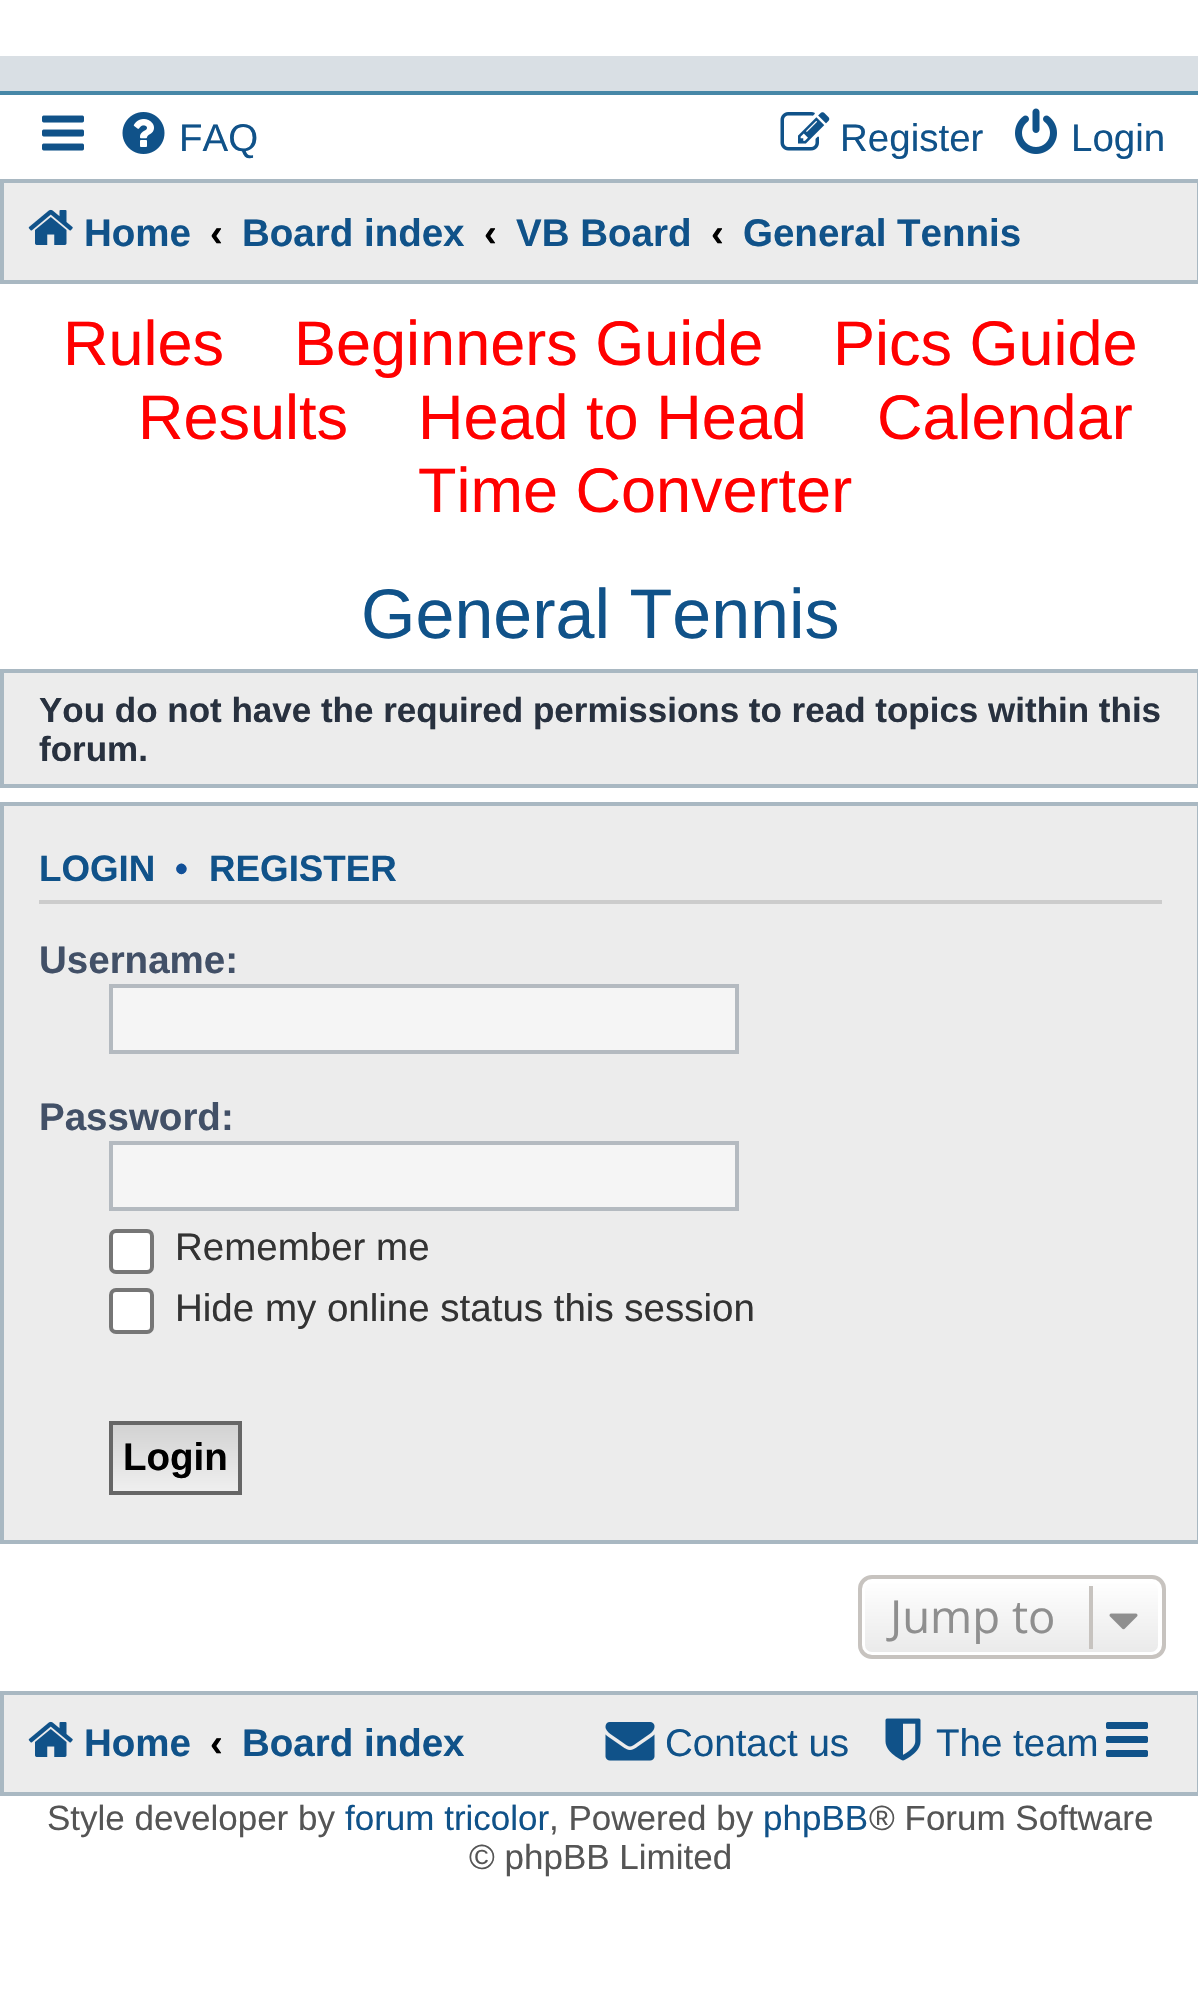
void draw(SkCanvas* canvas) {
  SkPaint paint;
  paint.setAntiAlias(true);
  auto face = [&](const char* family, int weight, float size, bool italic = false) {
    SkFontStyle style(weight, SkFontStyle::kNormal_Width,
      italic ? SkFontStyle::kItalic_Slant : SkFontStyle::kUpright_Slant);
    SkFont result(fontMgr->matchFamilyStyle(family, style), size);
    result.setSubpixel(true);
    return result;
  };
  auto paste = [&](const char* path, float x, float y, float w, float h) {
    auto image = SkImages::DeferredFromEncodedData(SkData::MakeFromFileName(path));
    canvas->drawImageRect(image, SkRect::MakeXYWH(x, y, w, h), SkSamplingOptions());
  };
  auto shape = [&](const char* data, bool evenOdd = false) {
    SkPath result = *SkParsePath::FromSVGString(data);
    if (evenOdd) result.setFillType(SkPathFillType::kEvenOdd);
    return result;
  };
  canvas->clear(0xffffffff);
  paint.setColor(0xffd9dfe4);
  canvas->drawRect(SkRect::MakeXYWH(0, 56, 1198, 35), paint);
  paint.setColor(0xff4787a7);
  canvas->drawRect(SkRect::MakeXYWH(0, 91, 1198, 4), paint);
  paste("img/1.png", 42, 115, 42, 36);
  paste("img/2.png", 122, 112, 43, 42);
  paste("img/3.png", 780, 112, 50, 39);
  paste("img/4.png", 1015, 108, 42, 46);
  paint.setColor(0xffececec);
  canvas->drawRect(SkRect::MakeXYWH(2, 181, 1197, 101), paint);
  paint.setStroke(true);
  paint.setStrokeWidth(4);
  paint.setColor(0xffa9b8c2);
  canvas->drawRect(SkRect::MakeXYWH(2, 181, 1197, 101), paint);
  paste("img/5.png", 28, 209, 45, 36);
  paint.setStroke(false);
  paint.setColor(0xffececec);
  canvas->drawRect(SkRect::MakeXYWH(2, 671, 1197, 115), paint);
  paint.setStroke(true);
  paint.setColor(0xffa9b8c2);
  canvas->drawRect(SkRect::MakeXYWH(2, 671, 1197, 115), paint);
  paint.setStroke(false);
  paint.setColor(0xffececec);
  canvas->drawRect(SkRect::MakeXYWH(2, 804, 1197, 738), paint);
  paint.setStroke(true);
  paint.setColor(0xffa9b8c2);
  canvas->drawRect(SkRect::MakeXYWH(2, 804, 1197, 738), paint);
  paint.setStroke(false);
  paint.setColor(0xffcccccc);
  canvas->drawRect(SkRect::MakeXYWH(39, 900, 1123, 4), paint);
  paint.setColor(0xfff5f5f5);
  canvas->drawRect(SkRect::MakeXYWH(111, 986, 626, 66), paint);
  paint.setStroke(true);
  paint.setColor(0xffb4bac0);
  canvas->drawRect(SkRect::MakeXYWH(111, 986, 626, 66), paint);
  paint.setStroke(false);
  paint.setColor(0xfff5f5f5);
  canvas->drawRect(SkRect::MakeXYWH(111, 1143, 626, 66), paint);
  paint.setStroke(true);
  paint.setColor(0xffb4bac0);
  canvas->drawRect(SkRect::MakeXYWH(111, 1143, 626, 66), paint);
  paint.setStroke(false);
  paint.setColor(0xffffffff);
  canvas->drawRoundRect(SkRect::MakeXYWH(111, 1231, 41, 41), 5, 5, paint);
  paint.setStroke(true);
  paint.setColor(0xff767676);
  canvas->drawRoundRect(SkRect::MakeXYWH(111, 1231, 41, 41), 5, 5, paint);
  paint.setStroke(false);
  paint.setColor(0xffffffff);
  canvas->drawRoundRect(SkRect::MakeXYWH(111, 1290, 41, 42), 5, 5, paint);
  paint.setStroke(true);
  paint.setColor(0xff767676);
  canvas->drawRoundRect(SkRect::MakeXYWH(111, 1290, 41, 42), 5, 5, paint);
  paint.setStroke(false);
  {
    const SkColor colors[] = {0xffd2d2d2, 0xffefefef};
    const float stops[] = {0, 1};
    const SkPoint ends[] = {{175, 1425}, {175, 1491}};
    paint.setShader(SkGradientShader::MakeLinear(ends, colors, stops, 2, SkTileMode::kClamp));
    paint.setAlpha(255);
  }
  canvas->drawRect(SkRect::MakeXYWH(113, 1425, 125, 66), paint);
  paint.setStroke(true);
  paint.setShader(nullptr);
  paint.setColor(0xff666666);
  canvas->drawRect(SkRect::MakeXYWH(111, 1423, 129, 70), paint);
  canvas->save();
  canvas->clipPath(shape("M872 1575H1152C1159.5 1575 1166 1581.5 1166 1589V1645C1166 1652.5 1159.5 1659 1152 1659H872C864.5 1659 858 1652.5 858 1645V1589C858 1581.5 864.5 1575 872 1575Z"), true);
  paint.setStroke(false);
  {
    const SkColor colors[] = {0xffffffff, 0xffe9e9e9};
    const float stops[] = {0, 1};
    const SkPoint ends[] = {{1012, 1579}, {1012, 1656}};
    paint.setShader(SkGradientShader::MakeLinear(ends, colors, stops, 2, SkTileMode::kClamp));
    paint.setAlpha(255);
  }
  canvas->drawRect(SkRect::MakeXYWH(858, 1579, 308, 77), paint);
  canvas->restore();
  paint.setStroke(true);
  paint.setShader(nullptr);
  paint.setColor(0xffffffff);
  canvas->drawRoundRect(SkRect::MakeXYWH(863, 1581, 297, 73), 9, 9, paint);
  paint.setColor(0xffc7c3bf);
  canvas->drawRoundRect(SkRect::MakeXYWH(860, 1577, 304, 80), 12, 12, paint);
  paint.setStroke(false);
  canvas->drawRect(SkRect::MakeXYWH(1089, 1586, 4, 63), paint);
  paste("img/6.png", 1109, 1613, 29, 17);
  paint.setColor(0xffececec);
  canvas->drawRect(SkRect::MakeXYWH(2, 1693, 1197, 101), paint);
  paint.setStroke(true);
  paint.setColor(0xffa9b8c2);
  canvas->drawRect(SkRect::MakeXYWH(2, 1693, 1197, 101), paint);
  paste("img/5.png", 28, 1721, 45, 36);
  paste("img/7.png", 605, 1722, 50, 39);
  paste("img/8.png", 885, 1718, 36, 43);
  paste("img/9.png", 1106, 1722, 42, 35);
  auto f0 = face("Liberation Sans", 400, 38.5f);
  paint.setStroke(false);
  paint.setColor(0xff105289);
  {
    const struct { const char* s; float x, y; } items[] = {
      {"FAQ", 179, 151},
      {"Register", 840, 151},
      {"Login", 1071, 151},
    };
    for (auto [s, x, y] : items) {
      canvas->drawString(s, x, y, f0, paint);
    }
  }
  auto f1 = face("Liberation Sans", 700, 38.5f);
  canvas->drawString("Home", 84, 246, f1, paint);
  paint.setColor(0xff000000);
  canvas->drawString("‹", 210, 246, f1, paint);
  paint.setColor(0xff105289);
  canvas->drawString("Board index", 242, 246, f1, paint);
  paint.setColor(0xff000000);
  canvas->drawString("‹", 484, 246, f1, paint);
  paint.setColor(0xff105289);
  canvas->drawString("VB Board", 516, 246, f1, paint);
  paint.setColor(0xff000000);
  canvas->drawString("‹", 711, 246, f1, paint);
  paint.setColor(0xff105289);
  canvas->drawString("General Tennis", 743, 246, f1, paint);
  auto f2 = face("Liberation Sans", 400, 63);
  paint.setColor(0xffff0000);
  {
    const struct { const char* s; float x, y; } items[] = {
      {"Rules", 63, 365},
      {"Beginners Guide", 294, 365},
      {"Pics Guide", 833, 365},
      {"Results", 138, 439},
      {"Head to Head", 418, 439},
      {"Calendar", 877, 439},
      {"Time Converter", 418, 512},
    };
    for (auto [s, x, y] : items) {
      canvas->drawString(s, x, y, f2, paint);
    }
  }
  auto f3 = face("Liberation Sans", 400, 70);
  paint.setColor(0xff105289);
  canvas->drawString("General Tennis", 361, 638, f3, paint);
  auto f4 = face("Liberation Sans", 700, 35);
  paint.setColor(0xff28313f);
  canvas->drawString("You do not have the required permissions to read topics within this", 39, 722, f4, paint);
  canvas->drawString("forum.", 39, 761, f4, paint);
  auto f5 = face("Liberation Sans", 700, 36.75f);
  paint.setColor(0xff105289);
  canvas->drawString("LOGIN", 39, 881, f5, paint);
  paint.setColor(0xff115098);
  canvas->drawString("•", 175, 881, f5, paint);
  paint.setColor(0xff105289);
  canvas->drawString("REGISTER", 209, 881, f5, paint);
  paint.setColor(0xff425067);
  canvas->drawString("Username:", 39, 973, f1, paint);
  canvas->drawString("Password:", 39, 1130, f1, paint);
  paint.setColor(0xff333333);
  canvas->drawString("Remember me", 175, 1260, f0, paint);
  canvas->drawString("Hide my online status this session", 175, 1321, f0, paint);
  paint.setColor(0xff000000);
  canvas->drawString("Login", 123, 1470, f1, paint);
  auto f6 = face("Open Sans", 400, 45.5f);
  paint.setColor(0xff8f8f8f);
  canvas->drawString("Jump to", 890, 1633, f6, paint);
  paint.setColor(0xff105289);
  canvas->drawString("Home", 84, 1756, f1, paint);
  paint.setColor(0xff000000);
  canvas->drawString("‹", 210, 1756, f1, paint);
  paint.setColor(0xff105289);
  canvas->drawString("Board index", 242, 1756, f1, paint);
  canvas->drawString("Contact us", 665, 1756, f0, paint);
  canvas->drawString("The team", 936, 1756, f0, paint);
  auto f7 = face("Liberation Sans", 400, 35);
  paint.setColor(0xff555555);
  canvas->drawString("Style developer by", 47, 1830, f7, paint);
  paint.setColor(0xff105289);
  canvas->drawString("forum tricolor", 345, 1830, f7, paint);
  paint.setColor(0xff555555);
  canvas->drawString(", Powered by", 549, 1830, f7, paint);
  paint.setColor(0xff105289);
  canvas->drawString("phpBB", 763, 1830, f7, paint);
  paint.setColor(0xff555555);
  canvas->drawString("® Forum Software", 869, 1830, f7, paint);
  canvas->drawString("© phpBB Limited", 469, 1869, f7, paint);
}
